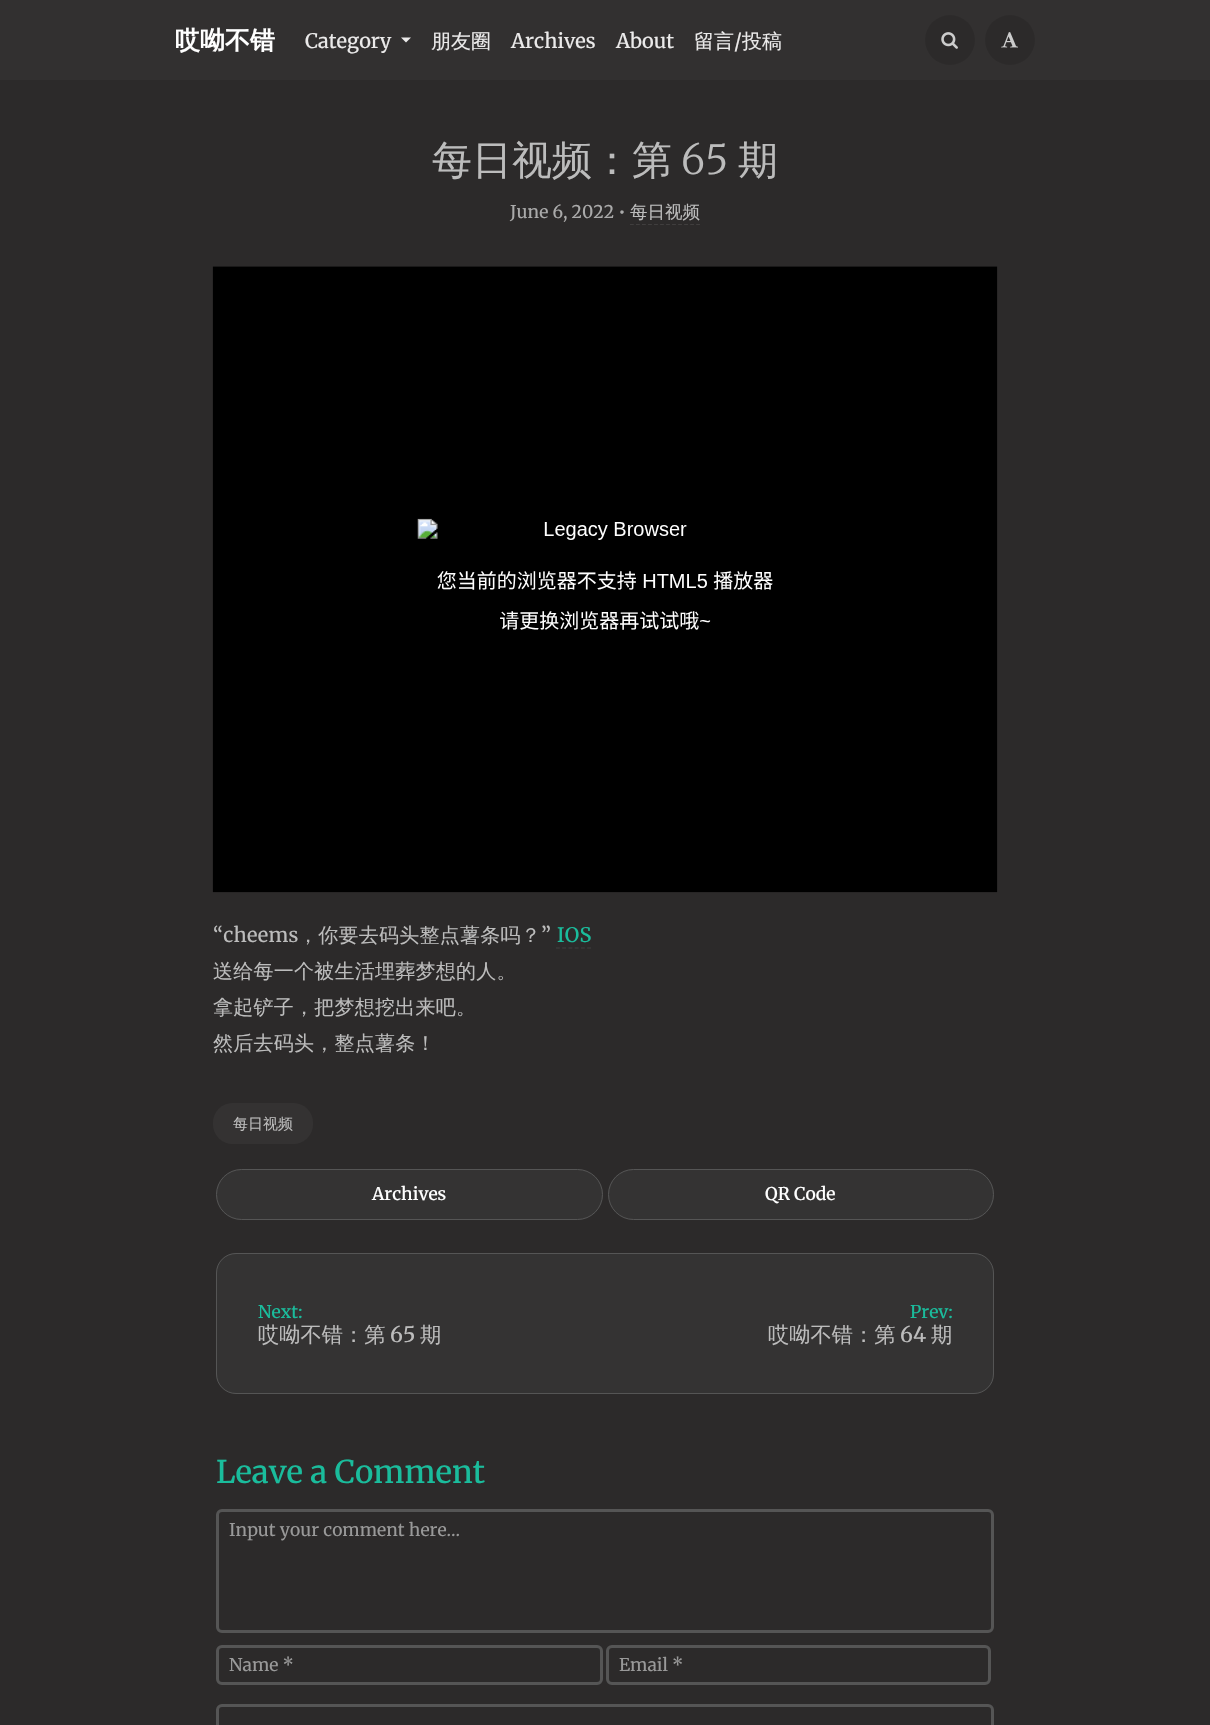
void draw(SkCanvas* canvas) {
  SkPaint paint;
  paint.setAntiAlias(true);
  auto face = [&](const char* family, int weight, float size, bool italic = false) {
    SkFontStyle style(weight, SkFontStyle::kNormal_Width,
      italic ? SkFontStyle::kItalic_Slant : SkFontStyle::kUpright_Slant);
    SkFont result(fontMgr->matchFamilyStyle(family, style), size);
    result.setSubpixel(true);
    return result;
  };
  auto writeSpaced = [&](const char* s, float x, float y, const SkFont& font, const SkPaint& ink, float letter, float word) {
    std::vector<SkGlyphID> glyphs(font.countText(s, strlen(s), SkTextEncoding::kUTF8));
    std::vector<float> xs(glyphs.size());
    font.textToGlyphs(s, strlen(s), SkTextEncoding::kUTF8, glyphs);
    font.getXPos(glyphs, xs, x);
    float extra = 0;
    for (size_t i = 0; i < glyphs.size(); i++) {
      xs[i] += extra;
      extra += letter + word * (glyphs[i] == font.unicharToGlyph(' '));
    }
    canvas->drawTextBlob(SkTextBlob::MakeFromPosHGlyphs(glyphs, xs, y, font), 0, 0, ink);
  };
  auto paste = [&](const char* path, float x, float y, float w, float h) {
    auto image = SkImages::DeferredFromEncodedData(SkData::MakeFromFileName(path));
    canvas->drawImageRect(image, SkRect::MakeXYWH(x, y, w, h), SkSamplingOptions());
  };
  auto shape = [&](const char* data, bool evenOdd = false) {
    SkPath result = *SkParsePath::FromSVGString(data);
    if (evenOdd) result.setFillType(SkPathFillType::kEvenOdd);
    return result;
  };
  canvas->clear(0xff2c2a2a);
  paint.setColor(0xff323030);
  canvas->drawRect(SkRect::MakeXYWH(0, 0, 1210, 80), paint);
  paint.setColor(0xffebeaea);
  canvas->drawPath(shape("M401 37.5H411L406 42.5Z"), paint);
  paint.setColor(0xff2c2a2a);
  canvas->drawCircle(950, 40, 25, paint);
  paste("img/1.png", 941, 32, 17, 17);
  canvas->drawCircle(1010, 40, 25, paint);
  paste("img/2.png", 1001, 32, 17, 16);
  paint.setStroke(true);
  paint.setStrokeWidth(1.2f);
  paint.setColor(0xff403e3e);
  paint.setPathEffect(SkDashPathEffect::Make({{3.75f, 2.27f}}, 0));
  canvas->drawPath(shape("M630 224.5H700"), paint);
  paint.setPathEffect(nullptr);
  paste("img/3.png", 212, 266, 786, 627);
  paint.setPathEffect(SkDashPathEffect::Make({{3.75f, 2.5f}}, 0));
  canvas->drawPath(shape("M556 948H591"), paint);
  paint.setPathEffect(nullptr);
  paint.setStroke(false);
  paint.setColor(0xff343232);
  canvas->drawRoundRect(SkRect::MakeXYWH(213, 1103, 100, 41), 20, 20, paint);
  paint.setColor(0xff343333);
  canvas->drawRoundRect(SkRect::MakeXYWH(216.5f, 1169.5f, 386, 50), 25, 25, paint);
  paint.setStroke(true);
  paint.setStrokeWidth(1);
  paint.setColor(0xff555555);
  canvas->drawRoundRect(SkRect::MakeXYWH(216.5f, 1169.5f, 386, 50), 25, 25, paint);
  paint.setStroke(false);
  paint.setColor(0xff343333);
  canvas->drawRoundRect(SkRect::MakeXYWH(608.5f, 1169.5f, 385, 50), 25, 25, paint);
  paint.setStroke(true);
  paint.setColor(0xff555555);
  canvas->drawRoundRect(SkRect::MakeXYWH(608.5f, 1169.5f, 385, 50), 25, 25, paint);
  paint.setStroke(false);
  paint.setColor(0xff343333);
  canvas->drawRoundRect(SkRect::MakeXYWH(216.5f, 1253.5f, 777, 140), 19.5f, 19.5f, paint);
  paint.setStroke(true);
  paint.setColor(0xff555555);
  canvas->drawRoundRect(SkRect::MakeXYWH(216.5f, 1253.5f, 777, 140), 19.5f, 19.5f, paint);
  paint.setStrokeWidth(3);
  canvas->drawRoundRect(SkRect::MakeXYWH(217.5f, 1510.5f, 775, 121), 4.5f, 4.5f, paint);
  canvas->drawRoundRect(SkRect::MakeXYWH(217.5f, 1646.5f, 384, 37), 4.5f, 4.5f, paint);
  canvas->drawRoundRect(SkRect::MakeXYWH(607.5f, 1646.5f, 382, 37), 4.5f, 4.5f, paint);
  canvas->drawRoundRect(SkRect::MakeXYWH(217.5f, 1705.5f, 775, 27), 4.5f, 4.5f, paint);
  auto f0 = face("WenQuanYi Zen Hei", 700, 25);
  paint.setStroke(false);
  paint.setColor(0xffffffff);
  canvas->drawString("哎呦不错", 175, 49, f0, paint);
  auto f1 = face("Merriweather", 400, 20);
  paint.setColor(0xffebeaea);
  canvas->drawString("Category", 305, 48, f1, paint);
  auto f2 = face("WenQuanYi Zen Hei", 500, 20);
  canvas->drawString("朋友圈", 431, 48, f2, paint);
  canvas->drawString("Archives", 511, 48, f1, paint);
  canvas->drawString("About", 616, 48, f1, paint);
  canvas->drawString("留言", 694, 48, f2, paint);
  canvas->drawString("/", 734, 48, f1, paint);
  canvas->drawString("投稿", 742, 48, f2, paint);
  auto f3 = face("WenQuanYi Zen Hei", 500, 40);
  paint.setColor(0xffbcbcbc);
  canvas->drawString("每日视频：第", 432, 174, f3, paint);
  auto f4 = face("Merriweather", 300, 40);
  canvas->drawString("65", 681, 174, f4, paint);
  canvas->drawString("期", 738, 174, f3, paint);
  auto f5 = face("Merriweather", 400, 17.5f);
  paint.setColor(0xffaaaaaa);
  canvas->drawString("June 6, 2022 •", 510, 218, f5, paint);
  auto f6 = face("WenQuanYi Zen Hei", 500, 17.5f);
  paint.setColor(0xffbcbcbc);
  canvas->drawString("每日视频", 630, 218, f6, paint);
  writeSpaced("“cheems", 213, 942, f1, paint, 0.25f, 0);
  writeSpaced("，你要去码头整点薯条吗？", 298, 942, f2, paint, 0.25f, 0);
  writeSpaced("”", 541, 942, f1, paint, 0.25f, 0);
  auto f7 = face("Merriweather", 500, 20);
  paint.setColor(0xff1abc9c);
  writeSpaced("IOS", 557, 942, f7, paint, 0.25f, 0);
  paint.setColor(0xffbcbcbc);
  {
    const struct { const char* s; float x, y; } items[] = {
      {"送给每一个被生活埋葬梦想的人。", 213, 978},
      {"拿起铲子，把梦想挖出来吧。", 213, 1014},
      {"然后去码头，整点薯条！", 213, 1050},
    };
    for (auto [s, x, y] : items) {
      writeSpaced(s, x, y, f2, paint, 0.25f, 0);
    }
  }
  auto f8 = face("WenQuanYi Zen Hei", 500, 15);
  canvas->drawString("每日视频", 233, 1129, f8, paint);
  auto f9 = face("Merriweather", 500, 17.5f);
  paint.setColor(0xffffffff);
  canvas->drawString("Archives", 372, 1200, f9, paint);
  canvas->drawString("QR Code", 765, 1200, f9, paint);
  paint.setColor(0xff1abc9c);
  canvas->drawString("Next:", 258, 1318, f9, paint);
  auto f10 = face("WenQuanYi Zen Hei", 500, 21.25f);
  paint.setColor(0xffbcbcbc);
  canvas->drawString("哎呦不错：第", 258, 1342, f10, paint);
  auto f11 = face("Merriweather", 500, 21.25f);
  canvas->drawString("65", 390, 1342, f11, paint);
  canvas->drawString("期", 420, 1342, f10, paint);
  paint.setColor(0xff1abc9c);
  canvas->drawString("Prev:", 910, 1318, f9, paint);
  paint.setColor(0xffbcbcbc);
  canvas->drawString("哎呦不错：第", 768, 1342, f10, paint);
  canvas->drawString("64", 900, 1342, f11, paint);
  canvas->drawString("期", 931, 1342, f10, paint);
  auto f12 = face("Merriweather", 500, 31.25f);
  paint.setColor(0xff1abc9c);
  canvas->drawString("Leave a Comment", 216, 1483, f12, paint);
  paint.setColor(0xff999999);
  {
    const struct { const char* s; float x, y; } items[] = {
      {"Input your comment here...", 229, 1536},
      {"Name *", 229, 1671},
      {"Email *", 619, 1671},
    };
    for (auto [s, x, y] : items) {
      canvas->drawString(s, x, y, f5, paint);
    }
  }
}
